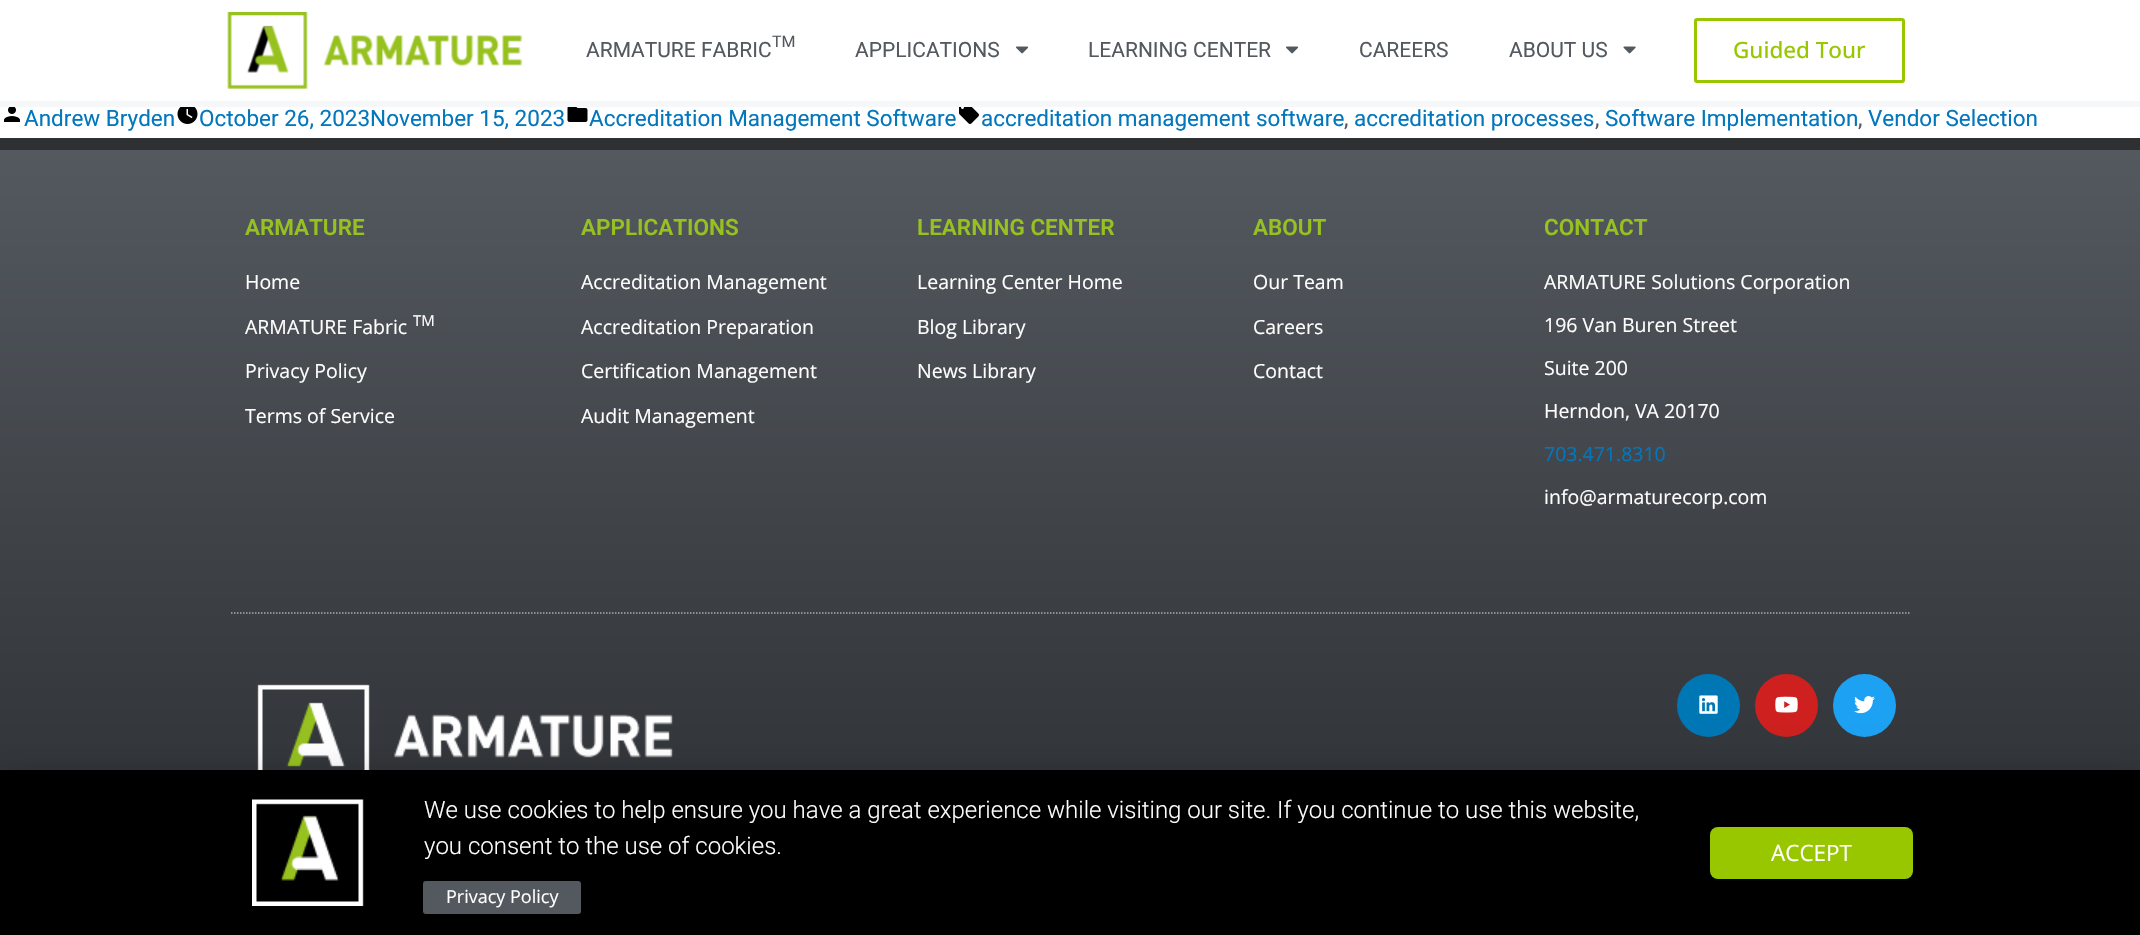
void draw(SkCanvas* canvas) {
  SkPaint paint;
  paint.setAntiAlias(true);
  auto face = [&](const char* family, int weight, float size, bool italic = false) {
    SkFontStyle style(weight, SkFontStyle::kNormal_Width,
      italic ? SkFontStyle::kItalic_Slant : SkFontStyle::kUpright_Slant);
    SkFont result(fontMgr->matchFamilyStyle(family, style), size);
    result.setSubpixel(true);
    return result;
  };
  auto paste = [&](const char* path, float x, float y, float w, float h) {
    auto image = SkImages::DeferredFromEncodedData(SkData::MakeFromFileName(path));
    canvas->drawImageRect(image, SkRect::MakeXYWH(x, y, w, h), SkSamplingOptions());
  };
  auto shape = [&](const char* data, bool evenOdd = false) {
    SkPath result = *SkParsePath::FromSVGString(data);
    if (evenOdd) result.setFillType(SkPathFillType::kEvenOdd);
    return result;
  };
  canvas->clear(0xffffffff);
  paint.setColor(0xfff6f7f8);
  canvas->drawRect(SkRect::MakeXYWH(0, 101, 2140, 6), paint);
  paste("img/1.png", 227, 12, 296, 77);
  paste("img/2.png", 1016, 46, 13, 8);
  paste("img/2.png", 1286, 46, 13, 8);
  paste("img/3.png", 1623, 46, 13, 8);
  paint.setStroke(true);
  paint.setStrokeWidth(3);
  paint.setColor(0xff98c700);
  canvas->drawRoundRect(SkRect::MakeXYWH(1695.5f, 19.5f, 208, 62), 1.5f, 1.5f, paint);
  paste("img/4.png", 4, 107, 16, 15);
  paste("img/5.png", 177, 107, 21, 17);
  paste("img/6.png", 567, 107, 21, 15);
  paste("img/7.png", 959, 107, 20, 17);
  paint.setStroke(false);
  {
    const SkColor colors[] = {0xff54595f, 0xff292c30};
    const float stops[] = {0, 1};
    const SkPoint ends[] = {{1070, 150}, {1070, 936}};
    paint.setShader(SkGradientShader::MakeLinear(ends, colors, stops, 2, SkTileMode::kClamp));
    paint.setAlpha(255);
  }
  canvas->drawRect(SkRect::MakeXYWH(0, 150, 2140, 620), paint);
  paint.setShader(nullptr);
  paint.setColor(0xff2f3031);
  canvas->drawRect(SkRect::MakeXYWH(0, 138, 2140, 12), paint);
  paint.setStroke(true);
  paint.setStrokeWidth(1.5f);
  paint.setColor(0xffa9aaac);
  paint.setPathEffect(SkDashPathEffect::Make({{1.5f, 1.5f}}, 0));
  canvas->drawPath(shape("M231 613H1911"), paint);
  paint.setPathEffect(nullptr);
  paste("img/8.png", 257, 684, 416, 86);
  paint.setStroke(false);
  paint.setColor(0xff0077b5);
  canvas->drawCircle(1708.5f, 705.5f, 31.5f, paint);
  paste("img/9.png", 1699, 695, 19, 19);
  paint.setColor(0xffcd201f);
  canvas->drawCircle(1786.5f, 705.5f, 31.5f, paint);
  paste("img/10.png", 1775, 696, 23, 17);
  paint.setColor(0xff1da1f2);
  canvas->drawCircle(1864.5f, 705.5f, 31.5f, paint);
  paste("img/11.png", 1854, 696, 21, 18);
  paint.setColor(0x33000000);
  paint.setMaskFilter(SkMaskFilter::MakeBlur(kNormal_SkBlurStyle, 17));
  canvas->drawRect(SkRect::MakeXYWH(-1, 777, 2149, 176), paint);
  paint.setMaskFilter(nullptr);
  paint.setColor(0xff000000);
  canvas->drawRect(SkRect::MakeXYWH(0, 770, 2140, 165), paint);
  paste("img/12.png", 252, 799, 112, 107);
  paint.setColor(0xff54595f);
  canvas->drawRoundRect(SkRect::MakeXYWH(423, 881, 158, 33), 3, 3, paint);
  paint.setColor(0xff98c700);
  canvas->drawRoundRect(SkRect::MakeXYWH(1710, 827, 203, 52), 8, 8, paint);
  auto f0 = face("Roboto", 400, 21);
  paint.setColor(0xff54595f);
  canvas->drawString("ARMATURE FABRIC", 586, 57, f0, paint);
  auto f1 = face("Roboto", 400, 16);
  canvas->drawString("TM", 772, 47, f1, paint);
  {
    const struct { const char* s; float x, y; } items[] = {
      {"APPLICATIONS", 855, 57},
      {"LEARNING CENTER", 1088, 57},
      {"CAREERS", 1359, 57},
      {"ABOUT US", 1509, 57},
    };
    for (auto [s, x, y] : items) {
      canvas->drawString(s, x, y, f0, paint);
    }
  }
  auto f2 = face("Open Sans", 500, 22.5f);
  paint.setColor(0xff98c700);
  canvas->drawString("Guided Tour", 1733, 58, f2, paint);
  auto f3 = face("Roboto", 400, 22.5f);
  paint.setColor(0xff0277bd);
  {
    const struct { const char* s; float x, y; } items[] = {
      {"Andrew Bryden", 24, 126},
      {"October 26, 2023November 15, 2023", 199, 126},
      {"Accreditation Management Software", 589, 126},
      {"accreditation management software", 981, 126},
    };
    for (auto [s, x, y] : items) {
      canvas->drawString(s, x, y, f3, paint);
    }
  }
  paint.setColor(0xff54595f);
  canvas->drawString(",", 1344, 126, f3, paint);
  paint.setColor(0xff0277bd);
  canvas->drawString("accreditation processes", 1354, 126, f3, paint);
  paint.setColor(0xff54595f);
  canvas->drawString(",", 1595, 126, f3, paint);
  paint.setColor(0xff0277bd);
  canvas->drawString("Software Implementation", 1605, 126, f3, paint);
  paint.setColor(0xff54595f);
  canvas->drawString(",", 1858, 126, f3, paint);
  paint.setColor(0xff0277bd);
  canvas->drawString("Vendor Selection", 1868, 126, f3, paint);
  auto f4 = face("Roboto", 600, 22.5f);
  paint.setColor(0xff96c121);
  canvas->drawString("ARMATURE", 245, 235, f4, paint);
  auto f5 = face("Open Sans", 400, 19.5f);
  paint.setColor(0xffffffff);
  canvas->drawString("Home", 245, 289, f5, paint);
  canvas->drawString("ARMATURE Fabric", 245, 334, f5, paint);
  auto f6 = face("Open Sans", 400, 15);
  canvas->drawString("TM", 413, 326, f6, paint);
  canvas->drawString("Privacy Policy", 245, 378, f5, paint);
  canvas->drawString("Terms of Service", 245, 423, f5, paint);
  paint.setColor(0xff96c121);
  canvas->drawString("APPLICATIONS", 581, 235, f4, paint);
  paint.setColor(0xffffffff);
  {
    const struct { const char* s; float x, y; } items[] = {
      {"Accreditation Management", 581, 289},
      {"Accreditation Preparation", 581, 334},
      {"Certification Management", 581, 378},
      {"Audit Management", 581, 423},
    };
    for (auto [s, x, y] : items) {
      canvas->drawString(s, x, y, f5, paint);
    }
  }
  paint.setColor(0xff96c121);
  canvas->drawString("LEARNING CENTER", 917, 235, f4, paint);
  paint.setColor(0xffffffff);
  {
    const struct { const char* s; float x, y; } items[] = {
      {"Learning Center Home", 917, 289},
      {"Blog Library", 917, 334},
      {"News Library", 917, 378},
    };
    for (auto [s, x, y] : items) {
      canvas->drawString(s, x, y, f5, paint);
    }
  }
  paint.setColor(0xff96c121);
  canvas->drawString("ABOUT", 1253, 235, f4, paint);
  paint.setColor(0xffffffff);
  {
    const struct { const char* s; float x, y; } items[] = {
      {"Our Team", 1253, 289},
      {"Careers", 1253, 334},
      {"Contact", 1253, 378},
    };
    for (auto [s, x, y] : items) {
      canvas->drawString(s, x, y, f5, paint);
    }
  }
  paint.setColor(0xff96c121);
  canvas->drawString("CONTACT", 1544, 235, f4, paint);
  paint.setColor(0xffffffff);
  {
    const struct { const char* s; float x, y; } items[] = {
      {"ARMATURE Solutions Corporation", 1544, 289},
      {"196 Van Buren Street", 1544, 332},
      {"Suite 200", 1544, 375},
      {"Herndon, VA 20170", 1544, 418},
    };
    for (auto [s, x, y] : items) {
      canvas->drawString(s, x, y, f5, paint);
    }
  }
  paint.setColor(0xff0277bd);
  canvas->drawString("703.471.8310", 1544, 461, f5, paint);
  paint.setColor(0xffffffff);
  canvas->drawString("info@armaturecorp.com", 1544, 504, f5, paint);
  auto f7 = face("Roboto", 300, 24);
  canvas->drawString("We use cookies to help ensure you have a great experience while visiting our site. If you continue to use this website,", 424, 818, f7, paint);
  canvas->drawString("you consent to the use of cookies.", 424, 854, f7, paint);
  auto f8 = face("Open Sans", 400, 18);
  canvas->drawString("Privacy Policy", 446, 903, f8, paint);
  auto f9 = face("Open Sans", 400, 22.5f);
  canvas->drawString("ACCEPT", 1771, 861, f9, paint);
}
